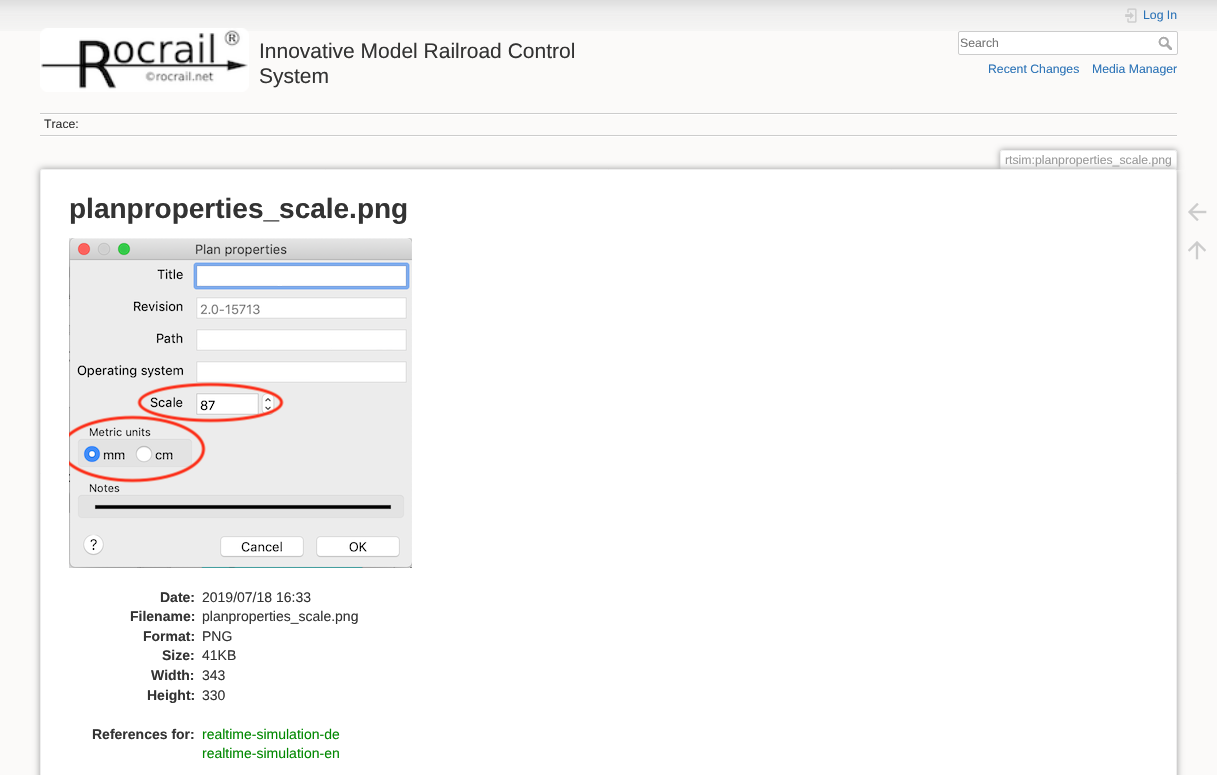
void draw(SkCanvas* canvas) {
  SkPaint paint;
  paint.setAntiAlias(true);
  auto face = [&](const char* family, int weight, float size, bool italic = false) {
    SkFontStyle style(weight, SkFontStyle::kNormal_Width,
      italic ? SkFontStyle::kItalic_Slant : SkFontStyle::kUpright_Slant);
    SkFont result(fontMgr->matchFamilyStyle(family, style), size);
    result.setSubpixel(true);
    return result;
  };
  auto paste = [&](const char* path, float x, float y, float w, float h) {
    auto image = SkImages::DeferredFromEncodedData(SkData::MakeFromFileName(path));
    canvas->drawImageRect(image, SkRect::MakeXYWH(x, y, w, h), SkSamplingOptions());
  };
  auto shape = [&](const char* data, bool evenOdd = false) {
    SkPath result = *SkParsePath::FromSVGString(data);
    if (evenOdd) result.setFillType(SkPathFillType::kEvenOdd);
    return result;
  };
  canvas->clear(0xfffbfaf9);
  paste("img/1.png", 0, 0, 1217, 31);
  paste("img/2.png", 40, 28, 209, 64);
  paste("img/3.png", 1125, 8, 12, 15);
  paint.setColor(0xffffffff);
  canvas->drawRoundRect(SkRect::MakeXYWH(958.5f, 31.5f, 219, 23), 1.5f, 1.5f, paint);
  paint.setStroke(true);
  paint.setStrokeWidth(1);
  paint.setColor(0xffcccccc);
  canvas->drawRoundRect(SkRect::MakeXYWH(958.5f, 31.5f, 219, 23), 1.5f, 1.5f, paint);
  paste("img/4.png", 1158, 36, 14, 14);
  paint.setStroke(false);
  {
    const struct { float x, y, w, h; SkColor color; } items[] = {
      {40, 113, 1137, 1, 0xffcccccc},
      {40, 136, 1137, 1, 0xffffffff},
      {40, 114, 1137, 1, 0xffffffff},
      {40, 135, 1137, 1, 0xffcccccc},
    };
    for (auto [x, y, w, h, color] : items) {
      paint.setColor(color);
      canvas->drawRect(SkRect::MakeXYWH(x, y, w, h), paint);
    }
  }
  canvas->save();
  canvas->clipRect(SkRect::MakeXYWH(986, 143, 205, 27));
  paint.setColor(0xff999999);
  paint.setMaskFilter(SkMaskFilter::MakeBlur(kNormal_SkBlurStyle, 3));
  canvas->drawRoundRect(SkRect::MakeXYWH(1000, 150, 177, 20), 2, 2, paint);
  paint.setMaskFilter(nullptr);
  canvas->restore();
  paint.setColor(0xffffffff);
  canvas->drawPath(shape("M1002 151H1175C1175.5 151 1176 151.5 1176 152V170H1001V152C1001 151.5 1001.5 151 1002 151Z"), paint);
  {
    const struct { float x, y, w, h; SkColor color; } items[] = {
      {1001, 150, 175, 1, 0xffeeeeee},
      {1176, 151, 1, 19, 0xffeeeeee},
      {1000, 151, 1, 19, 0xffeeeeee},
    };
    for (auto [x, y, w, h, color] : items) {
      paint.setColor(color);
      canvas->drawRect(SkRect::MakeXYWH(x, y, w, h), paint);
    }
  }
  paint.setColor(0xff999999);
  paint.setMaskFilter(SkMaskFilter::MakeBlur(kNormal_SkBlurStyle, 3.5f));
  canvas->drawRoundRect(SkRect::MakeXYWH(40, 169, 1137, 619), 2, 2, paint);
  paint.setMaskFilter(nullptr);
  paint.setColor(0xffffffff);
  canvas->drawRoundRect(SkRect::MakeXYWH(40.5f, 169.5f, 1136, 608), 1.5f, 1.5f, paint);
  paint.setStroke(true);
  paint.setColor(0xffeeeeee);
  canvas->drawRoundRect(SkRect::MakeXYWH(40.5f, 169.5f, 1136, 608), 1.5f, 1.5f, paint);
  paste("img/5.png", 69, 238, 343, 330);
  paste("img/6.png", 1188, 203, 19, 18);
  paste("img/7.png", 1188, 241, 18, 19);
  auto f0 = face("Liberation Sans", 400, 21);
  paint.setStroke(false);
  paint.setColor(0xff333333);
  canvas->drawString("Innovative Model Railroad Control", 259, 58, f0, paint);
  canvas->drawString("System", 259, 83, f0, paint);
  auto f1 = face("Liberation Sans", 400, 12.25f);
  paint.setColor(0xff2b73b7);
  canvas->drawString("Log In", 1143, 19, f1, paint);
  paint.setColor(0xff757575);
  canvas->drawString("Search", 960, 47, f1, paint);
  paint.setColor(0xff2b73b7);
  canvas->drawString("Recent Changes", 988, 73, f1, paint);
  canvas->drawString("Media Manager", 1092, 73, f1, paint);
  paint.setColor(0xff333333);
  canvas->drawString("Trace:", 44, 128, f1, paint);
  paint.setColor(0xff999999);
  canvas->drawString("rtsim:planproperties_scale.png", 1005, 164, f1, paint);
  auto f2 = face("Liberation Sans", 700, 28);
  paint.setColor(0xff333333);
  canvas->drawString("planproperties_scale.png", 69, 218, f2, paint);
  auto f3 = face("Liberation Sans", 700, 14);
  canvas->drawString("Date:", 160, 602, f3, paint);
  auto f4 = face("Liberation Sans", 400, 14);
  canvas->drawString("2019/07/18 16:33", 202, 602, f4, paint);
  canvas->drawString("Filename:", 130, 621, f3, paint);
  canvas->drawString("planproperties_scale.png", 202, 621, f4, paint);
  canvas->drawString("Format:", 143, 641, f3, paint);
  canvas->drawString("PNG", 202, 641, f4, paint);
  canvas->drawString("Size:", 162, 660, f3, paint);
  canvas->drawString("41KB", 202, 660, f4, paint);
  canvas->drawString("Width:", 151, 680, f3, paint);
  canvas->drawString("343", 202, 680, f4, paint);
  canvas->drawString("Height:", 147, 700, f3, paint);
  canvas->drawString("330", 202, 700, f4, paint);
  canvas->drawString("References for:", 92, 739, f3, paint);
  paint.setColor(0xff008800);
  canvas->drawString("realtime-simulation-de", 202, 739, f4, paint);
  canvas->drawString("realtime-simulation-en", 202, 758, f4, paint);
}
